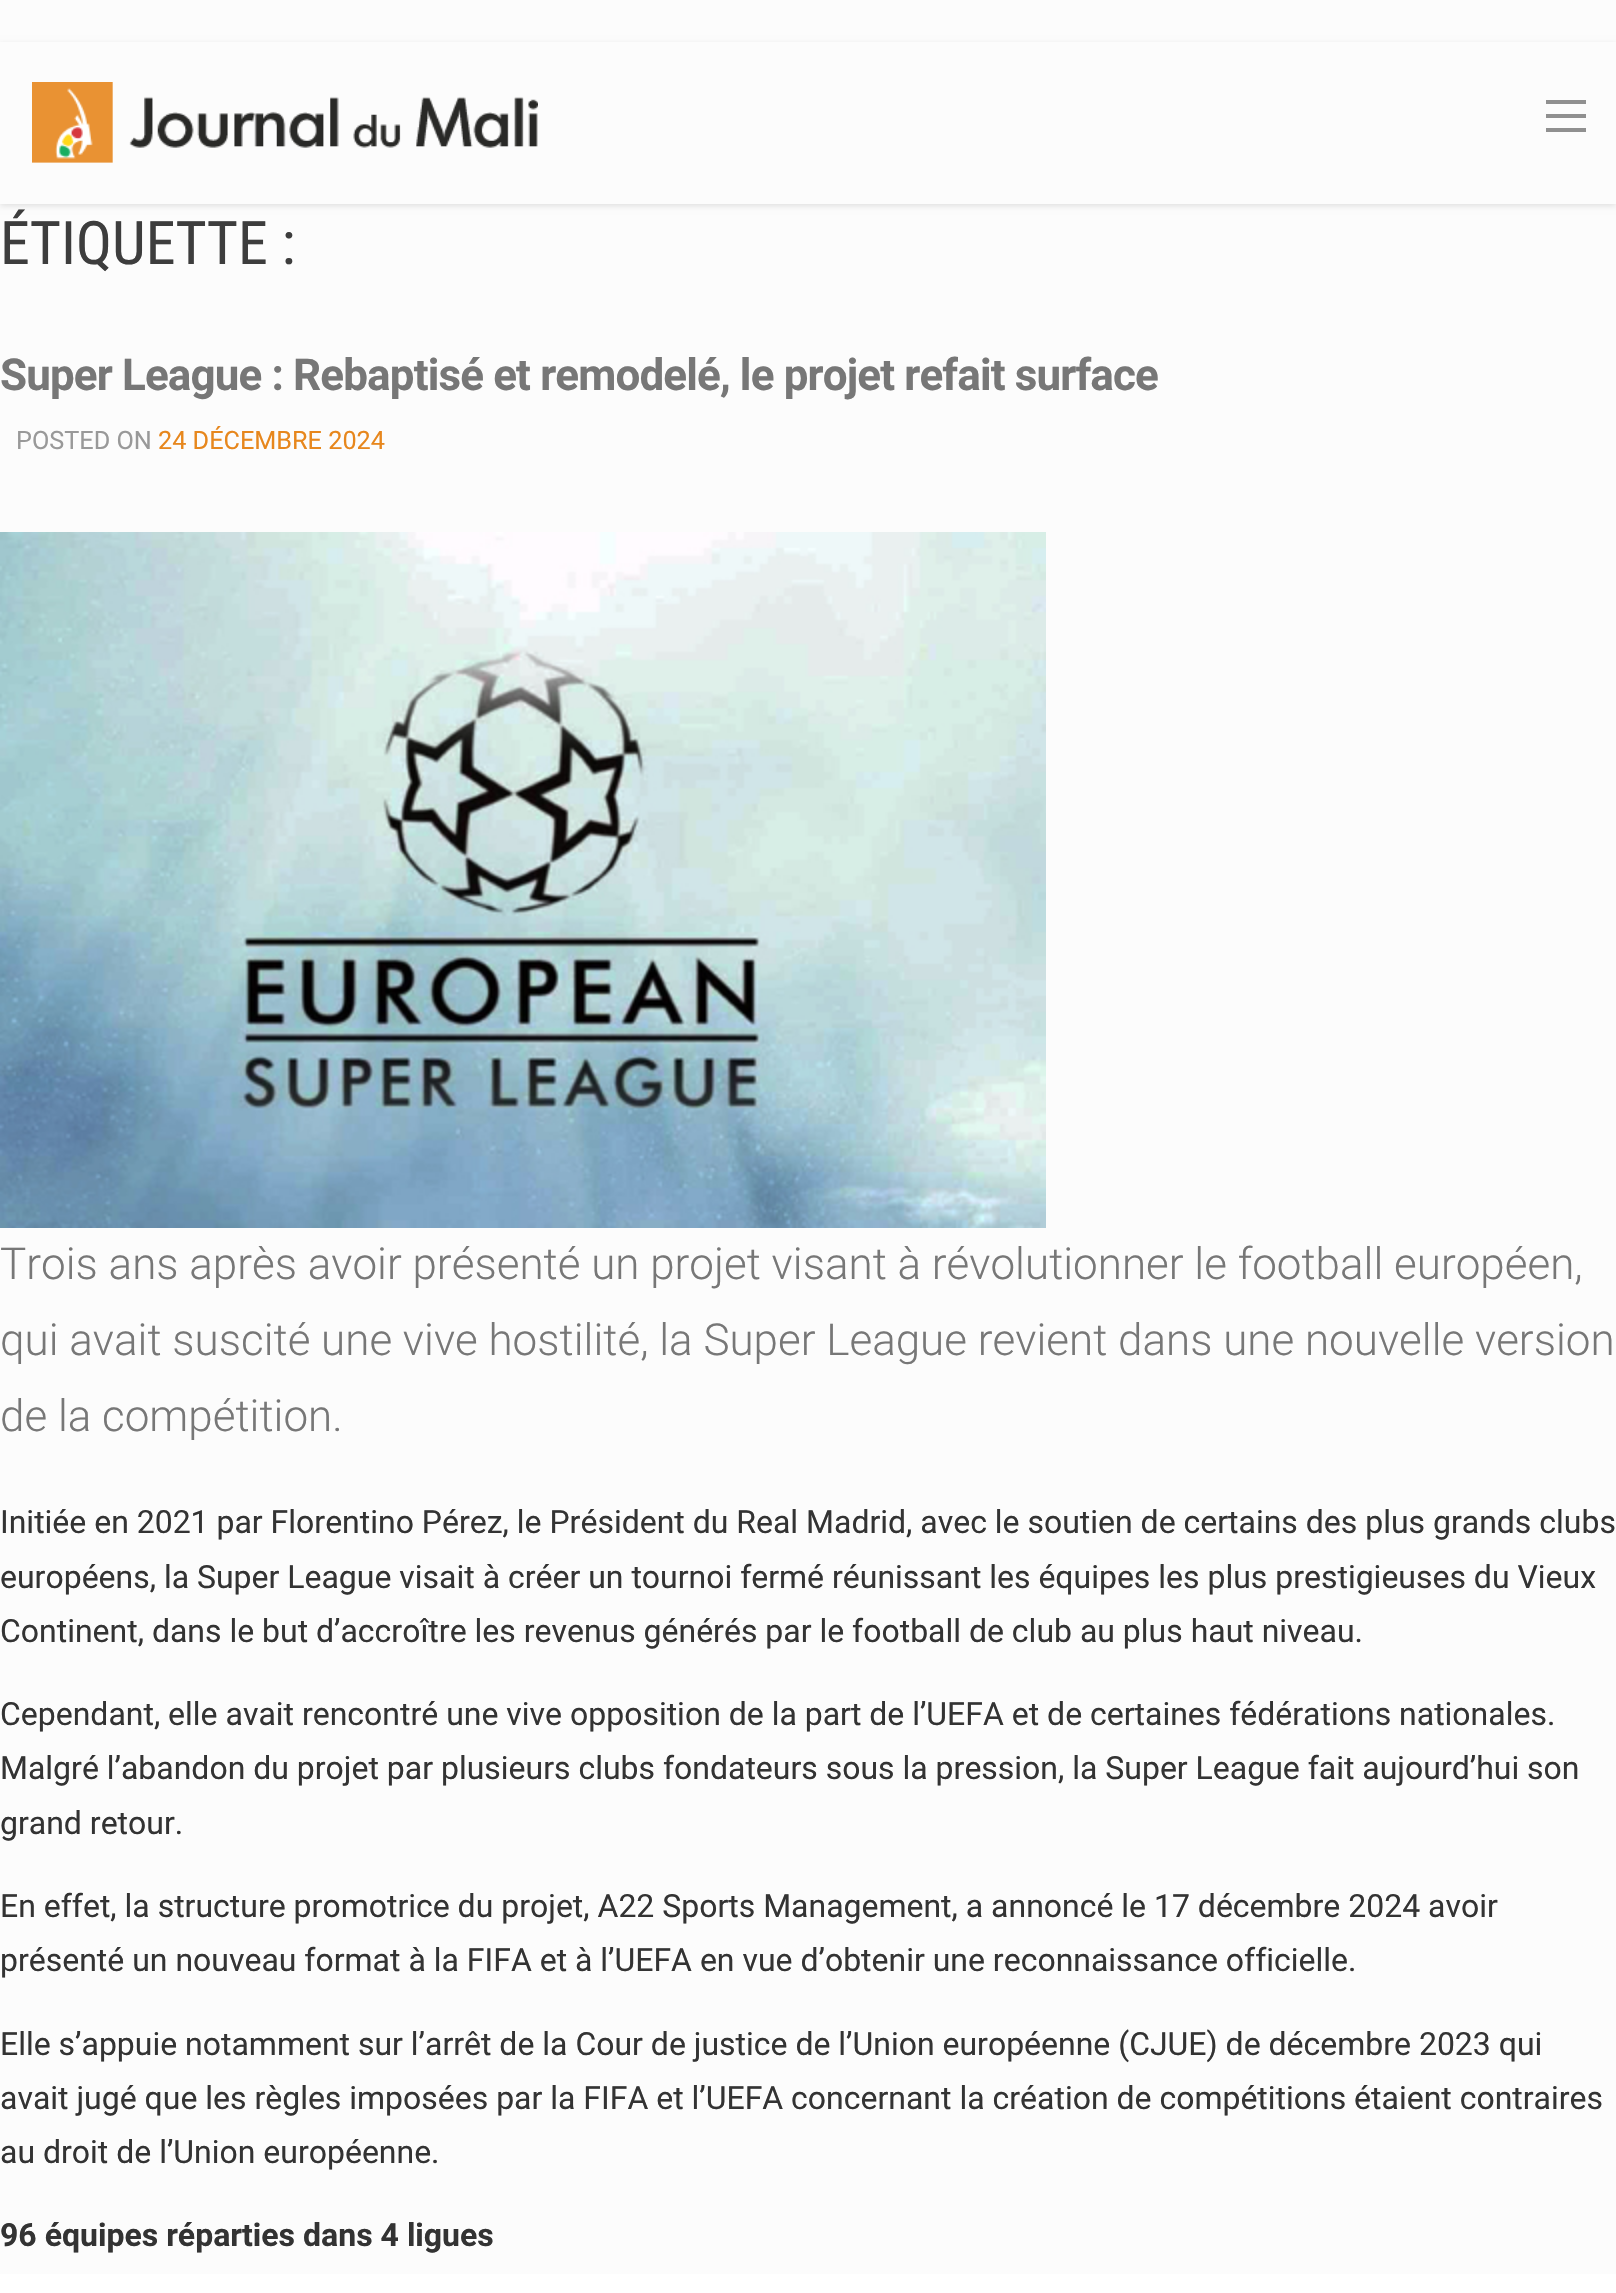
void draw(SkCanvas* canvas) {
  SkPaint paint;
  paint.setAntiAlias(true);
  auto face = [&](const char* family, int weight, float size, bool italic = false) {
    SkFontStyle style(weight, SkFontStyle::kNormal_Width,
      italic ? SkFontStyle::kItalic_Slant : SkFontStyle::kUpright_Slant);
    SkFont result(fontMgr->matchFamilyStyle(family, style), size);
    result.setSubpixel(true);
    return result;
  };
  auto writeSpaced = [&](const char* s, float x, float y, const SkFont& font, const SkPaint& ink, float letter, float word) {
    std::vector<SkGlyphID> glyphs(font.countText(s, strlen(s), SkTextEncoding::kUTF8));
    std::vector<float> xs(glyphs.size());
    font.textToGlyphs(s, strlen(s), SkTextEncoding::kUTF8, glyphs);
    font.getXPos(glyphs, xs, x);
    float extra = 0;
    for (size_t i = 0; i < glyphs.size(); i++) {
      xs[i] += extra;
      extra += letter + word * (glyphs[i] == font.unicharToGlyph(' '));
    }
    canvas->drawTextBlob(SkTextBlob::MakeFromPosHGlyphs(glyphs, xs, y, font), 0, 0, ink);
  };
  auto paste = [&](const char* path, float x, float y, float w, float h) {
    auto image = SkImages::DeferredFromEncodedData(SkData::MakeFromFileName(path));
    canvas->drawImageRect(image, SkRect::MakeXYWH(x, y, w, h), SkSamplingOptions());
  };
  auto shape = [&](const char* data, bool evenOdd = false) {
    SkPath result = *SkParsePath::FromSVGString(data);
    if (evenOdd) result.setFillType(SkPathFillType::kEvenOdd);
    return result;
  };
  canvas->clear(0xfffcfcfc);
  canvas->save();
  canvas->clipPath(shape("M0 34H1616V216H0ZM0 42H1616V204H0Z", true), true);
  paint.setColor(0x1c000000);
  paint.setMaskFilter(SkMaskFilter::MakeBlur(kNormal_SkBlurStyle, 3));
  canvas->drawRect(SkRect::MakeXYWH(0, 44, 1616, 162), paint);
  paint.setMaskFilter(nullptr);
  canvas->restore();
  paste("img/1.png", 32, 82, 506, 81);
  {
    const struct { float x, y, w, h; SkColor color; } items[] = {
      {1546, 100, 40, 4, 0xff909090},
      {1546, 114, 40, 4, 0xff909090},
      {1546, 128, 40, 4, 0xff909090},
    };
    for (auto [x, y, w, h, color] : items) {
      paint.setColor(color);
      canvas->drawRect(SkRect::MakeXYWH(x, y, w, h), paint);
    }
  }
  paste("img/2.png", 0, 532, 1046, 696);
  paint.setColor(0xffffffff);
  canvas->drawRect(SkRect::MakeXYWH(0, 2274, 1616, 19), paint);
  auto f0 = face("Roboto Condensed", 400, 60);
  paint.setColor(0xff3d3d3d);
  canvas->drawString("ÉTIQUETTE :", 0, 264, f0, paint);
  auto f1 = face("Roboto", 700, 44);
  paint.setColor(0xff777777);
  writeSpaced("Super League : Rebaptisé et remodelé, le projet refait surface", 0, 390, f1, paint, -0.88f, 0);
  auto f2 = face("Roboto", 400, 25.25f);
  paint.setColor(0xff999999);
  canvas->drawString("POSTED ON", 16, 449, f2, paint);
  paint.setColor(0xffe7871d);
  canvas->drawString("24 DÉCEMBRE 2024", 158, 449, f2, paint);
  auto f3 = face("Roboto", 300, 44);
  paint.setColor(0xff777777);
  {
    const struct { const char* s; float x, y; } items[] = {
      {"Trois ans après avoir présenté un projet visant à révolutionner le football européen,", 0, 1279},
      {"qui avait suscité une vive hostilité, la Super League revient dans une nouvelle version", 0, 1355},
      {"de la compétition.", 0, 1431},
    };
    for (auto [s, x, y] : items) {
      canvas->drawString(s, x, y, f3, paint);
    }
  }
  auto f4 = face("Roboto", 400, 32);
  paint.setColor(0xff333333);
  {
    const struct { const char* s; float x, y; } items[] = {
      {"Initiée en 2021 par Florentino Pérez, le Président du Real Madrid, avec le soutien de certains des plus grands clubs", 0, 1533},
      {"européens, la Super League visait à créer un tournoi fermé réunissant les équipes les plus prestigieuses du Vieux", 0, 1588},
      {"Continent, dans le but d’accroître les revenus générés par le football de club au plus haut niveau.", 0, 1642},
      {"Cependant, elle avait rencontré une vive opposition de la part de l’UEFA et de certaines fédérations nationales.", 0, 1725},
      {"Malgré l’abandon du projet par plusieurs clubs fondateurs sous la pression, la Super League fait aujourd’hui son", 0, 1779},
      {"grand retour.", 0, 1834},
      {"En effet, la structure promotrice du projet, A22 Sports Management, a annoncé le 17 décembre 2024 avoir", 0, 1917},
      {"présenté un nouveau format à la FIFA et à l’UEFA en vue d’obtenir une reconnaissance officielle.", 0, 1971},
      {"Elle s’appuie notamment sur l’arrêt de la Cour de justice de l’Union européenne (CJUE) de décembre 2023 qui", 0, 2055},
      {"avait jugé que les règles imposées par la FIFA et l’UEFA concernant la création de compétitions étaient contraires", 0, 2109},
      {"au droit de l’Union européenne.", 0, 2163},
    };
    for (auto [s, x, y] : items) {
      canvas->drawString(s, x, y, f4, paint);
    }
  }
  auto f5 = face("Roboto", 700, 32);
  canvas->drawString("96 équipes réparties dans 4 ligues", 0, 2246, f5, paint);
}
